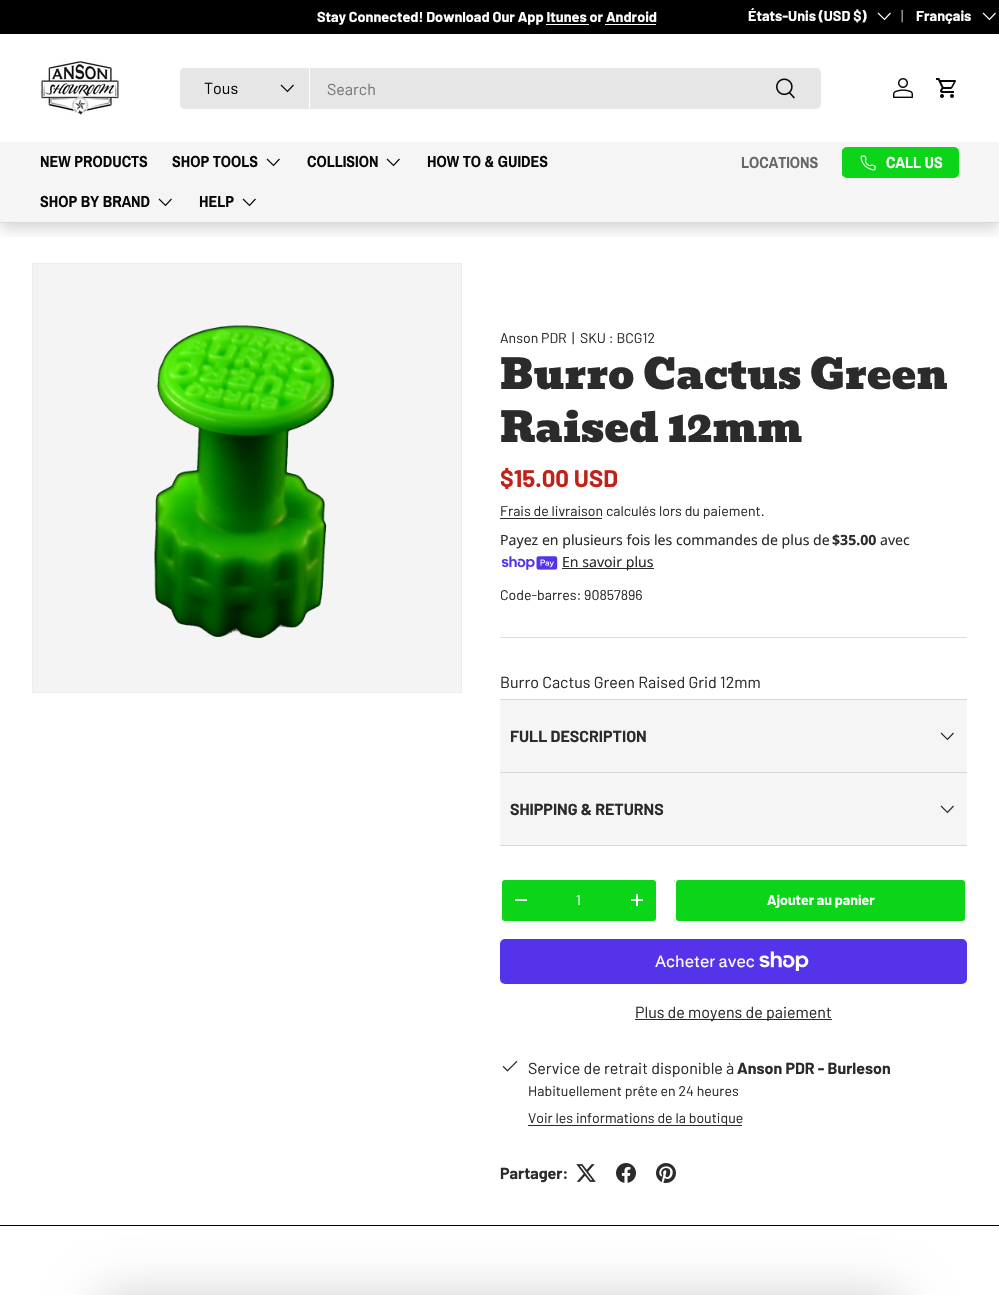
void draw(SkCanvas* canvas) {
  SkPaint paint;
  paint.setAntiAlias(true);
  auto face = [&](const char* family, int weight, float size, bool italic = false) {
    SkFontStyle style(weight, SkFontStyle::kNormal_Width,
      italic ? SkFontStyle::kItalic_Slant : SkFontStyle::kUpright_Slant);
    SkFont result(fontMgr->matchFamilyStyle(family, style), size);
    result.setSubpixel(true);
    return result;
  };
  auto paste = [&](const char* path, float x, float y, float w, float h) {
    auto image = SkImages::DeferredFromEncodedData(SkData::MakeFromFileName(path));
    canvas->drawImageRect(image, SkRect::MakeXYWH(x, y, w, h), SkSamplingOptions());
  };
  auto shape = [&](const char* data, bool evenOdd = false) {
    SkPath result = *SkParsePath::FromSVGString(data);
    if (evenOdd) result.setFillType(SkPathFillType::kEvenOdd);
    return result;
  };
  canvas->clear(0xffffffff);
  canvas->save();
  canvas->clipRect(SkRect::MakeXYWH(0, 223, 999, 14));
  paint.setColor(0x2e000000);
  paint.setMaskFilter(SkMaskFilter::MakeBlur(kNormal_SkBlurStyle, 7.5f));
  canvas->drawRect(SkRect::MakeXYWH(0, 39, 999, 189), paint);
  paint.setMaskFilter(nullptr);
  canvas->restore();
  {
    const struct { float x, y, w, h; SkColor color; } items[] = {
      {0, 0, 999, 34, 0xff000000},
      {546, 24, 43, 1, 0xffffffff},
      {605, 24, 51, 1, 0xffffffff},
    };
    for (auto [x, y, w, h, color] : items) {
      paint.setColor(color);
      canvas->drawRect(SkRect::MakeXYWH(x, y, w, h), paint);
    }
  }
  paint.setStroke(true);
  paint.setStrokeWidth(1.2f);
  canvas->drawPath(shape("M890.5 13L884.5 19.5L878 13"), paint);
  canvas->drawPath(shape("M995.5 13L989.5 19.5L983 13"), paint);
  paint.setStroke(false);
  paint.setColor(0xffdadada);
  canvas->drawRect(SkRect::MakeXYWH(0, 222, 999, 1), paint);
  paste("img/1.png", 41, 61, 79, 54);
  paint.setColor(0xffe6e6e6);
  canvas->drawRoundRect(SkRect::MakeXYWH(180, 68, 641, 41), 5, 5, paint);
  canvas->drawPath(shape("M185 68H310V109H185C182 109 180 107 180 104V73C180 70 182 68 185 68Z"), paint);
  paint.setColor(0xffffffff);
  canvas->drawRect(SkRect::MakeXYWH(309, 68, 1, 41), paint);
  paint.setStroke(true);
  paint.setColor(0xff070707);
  canvas->drawPath(shape("M293.5 85L287.5 91.5L281 85"), paint);
  paste("img/2.png", 776, 78, 19, 21);
  paste("img/3.png", 893, 78, 20, 20);
  paste("img/4.png", 936, 78, 20, 20);
  paint.setStroke(false);
  paint.setColor(0xfff5f5f5);
  canvas->drawRect(SkRect::MakeXYWH(0, 142, 999, 80), paint);
  paint.setStroke(true);
  paint.setColor(0xff070707);
  canvas->drawPath(shape("M279.5 159L273.5 165.5L267 159"), paint);
  canvas->drawPath(shape("M399.5 159L393.5 165.5L387 159"), paint);
  canvas->drawPath(shape("M171.5 199L165.5 205.5L159 199"), paint);
  canvas->drawPath(shape("M255.5 199L249.5 205.5L243 199"), paint);
  canvas->save();
  canvas->clipPath(shape("M847 147H954C957 147 959 149 959 152V173C959 176 957 178 954 178H847C844 178 842 176 842 173V152C842 149 844 147 847 147Z"), true);
  paint.setStroke(false);
  {
    const SkColor colors[] = {0xff3ddc47, 0xff0cd418, 0xff0cd418};
    const float stops[] = {0.6f, 0.6f, 1};
    const SkPoint ends[] = {{625, 122}, {950, 203}};
    paint.setShader(SkGradientShader::MakeLinear(ends, colors, stops, 3, SkTileMode::kClamp));
    paint.setAlpha(255);
  }
  canvas->drawRect(SkRect::MakeXYWH(842, 149, 115, 27), paint);
  canvas->restore();
  paint.setStroke(true);
  paint.setStrokeWidth(2);
  paint.setShader(nullptr);
  paint.setColor(0xff0cd418);
  canvas->drawRoundRect(SkRect::MakeXYWH(843, 148, 115, 29), 4, 4, paint);
  paste("img/5.png", 860, 155, 16, 16);
  paint.setStroke(false);
  paint.setColor(0xfff4f4f4);
  canvas->drawRect(SkRect::MakeXYWH(32.5f, 263.5f, 429, 429), paint);
  paint.setStroke(true);
  paint.setStrokeWidth(1);
  paint.setColor(0xffeeeeee);
  canvas->drawRect(SkRect::MakeXYWH(32.5f, 263.5f, 429, 429), paint);
  paste("img/6.png", 154, 325, 181, 314);
  paint.setStroke(false);
  paint.setColor(0xff2a2b2a);
  canvas->drawRect(SkRect::MakeXYWH(500, 518, 102, 1), paint);
  paste("img/7.png", 501, 556, 57, 14);
  {
    const struct { float x, y, w, h; SkColor color; } items[] = {
      {562, 568, 92, 1, 0xff2a2b2a},
      {500, 637, 467, 1, 0xffdfdfdf},
      {500, 700, 467, 72, 0xfff5f5f5},
      {500, 699, 467, 1, 0xffd7d7d7},
      {500, 772, 467, 1, 0xffd7d7d7},
    };
    for (auto [x, y, w, h, color] : items) {
      paint.setColor(color);
      canvas->drawRect(SkRect::MakeXYWH(x, y, w, h), paint);
    }
  }
  paint.setStroke(true);
  paint.setStrokeWidth(1.2f);
  paint.setColor(0xff2a2b2a);
  canvas->drawPath(shape("M953.5 733L947.5 739.5L941 733"), paint);
  paint.setStroke(false);
  paint.setColor(0xfff5f5f5);
  canvas->drawRect(SkRect::MakeXYWH(500, 773, 467, 72), paint);
  paint.setColor(0xffd7d7d7);
  canvas->drawRect(SkRect::MakeXYWH(500, 845, 467, 1), paint);
  paint.setStroke(true);
  paint.setColor(0xff2a2b2a);
  canvas->drawPath(shape("M953.5 806L947.5 812.5L941 806"), paint);
  paint.setStroke(false);
  paint.setColor(0xff0cd418);
  canvas->drawRoundRect(SkRect::MakeXYWH(501, 879, 156, 43), 4, 4, paint);
  paint.setStroke(true);
  paint.setStrokeWidth(2);
  paint.setColor(0xffffffff);
  canvas->drawRoundRect(SkRect::MakeXYWH(501, 879, 156, 43), 4, 4, paint);
  paint.setStroke(false);
  {
    const struct { float x, y, w, h; SkColor color; } items[] = {
      {515, 899, 12, 2, 0xffffffff},
      {631, 899, 12, 2, 0xffffffff},
      {636, 894, 2, 12, 0xffffffff},
    };
    for (auto [x, y, w, h, color] : items) {
      paint.setColor(color);
      canvas->drawRect(SkRect::MakeXYWH(x, y, w, h), paint);
    }
  }
  canvas->save();
  canvas->clipPath(shape("M679 878H962C965 878 967 880 967 883V918C967 921 965 923 962 923H679C676 923 674 921 674 918V883C674 880 676 878 679 878Z"), true);
  {
    const SkColor colors[] = {0x12ffffff, 0xff0cd418, 0xff0cd418};
    const float stops[] = {0.6f, 0.6f, 1};
    const SkPoint ends[] = {{119, 798}, {944, 1003}};
    paint.setShader(SkGradientShader::MakeLinear(ends, colors, stops, 3, SkTileMode::kClamp));
    paint.setAlpha(255);
  }
  canvas->drawRect(SkRect::MakeXYWH(674, 880, 291, 41), paint);
  canvas->restore();
  paint.setStroke(true);
  paint.setShader(nullptr);
  paint.setColor(0xffffffff);
  canvas->drawRoundRect(SkRect::MakeXYWH(675, 879, 291, 43), 4, 4, paint);
  paint.setStroke(false);
  paint.setColor(0xff5433eb);
  canvas->drawRoundRect(SkRect::MakeXYWH(500, 939, 467, 45), 5, 5, paint);
  paste("img/8.png", 759, 951, 50, 20);
  paint.setColor(0xff2a2b2a);
  canvas->drawRect(SkRect::MakeXYWH(635, 1019, 197, 1), paint);
  paste("img/9.png", 502, 1060, 16, 12);
  canvas->drawRect(SkRect::MakeXYWH(528, 1125, 214, 1), paint);
  paste("img/10.png", 576, 1164, 20, 18);
  paste("img/11.png", 616, 1163, 20, 20);
  paste("img/12.png", 656, 1163, 20, 20);
  paint.setColor(0xff000000);
  canvas->drawRect(SkRect::MakeXYWH(0, 1225, 999, 1), paint);
  paint.setColor(0x2e000000);
  paint.setMaskFilter(SkMaskFilter::MakeBlur(kNormal_SkBlurStyle, 25));
  canvas->drawRoundRect(SkRect::MakeXYWH(100, 1295, 800, 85), 10, 10, paint);
  paint.setMaskFilter(nullptr);
  auto f0 = face("Barlow", 700, 14.4f);
  paint.setColor(0xffffffff);
  canvas->drawString("Stay Connected! Download Our App Itunes or Android", 317, 22, f0, paint);
  canvas->drawString("États-Unis (USD $)", 748, 21, f0, paint);
  auto f1 = face("Barlow", 400, 14.4f);
  paint.setColor(0xffb3b3b3);
  canvas->drawString("|", 901, 21, f1, paint);
  paint.setColor(0xffffffff);
  canvas->drawString("Français", 916, 21, f0, paint);
  auto f2 = face("Barlow", 400, 16);
  paint.setColor(0xff070707);
  canvas->drawString("Tous", 204, 94, f2, paint);
  paint.setColor(0xff777777);
  canvas->drawString("Search", 327, 95, f2, paint);
  auto f3 = face("Archivo Narrow", 700, 16);
  paint.setColor(0xff070707);
  {
    const struct { const char* s; float x, y; } items[] = {
      {"NEW PRODUCTS", 40, 167},
      {"SHOP TOOLS", 172, 167},
      {"COLLISION", 307, 167},
      {"HOW TO & GUIDES", 427, 167},
      {"SHOP BY BRAND", 40, 207},
      {"HELP", 199, 207},
    };
    for (auto [s, x, y] : items) {
      canvas->drawString(s, x, y, f3, paint);
    }
  }
  paint.setColor(0xff666666);
  canvas->drawString("LOCATIONS", 741, 168, f3, paint);
  paint.setColor(0xffffffff);
  canvas->drawString("CALL US", 886, 168, f3, paint);
  auto f4 = face("Barlow", 400, 14.1f);
  paint.setColor(0xff2a2b2a);
  {
    const struct { const char* s; float x, y; } items[] = {
      {"Anson PDR", 500, 343},
      {"|", 572, 343},
      {"SKU : BCG12", 580, 343},
    };
    for (auto [s, x, y] : items) {
      canvas->drawString(s, x, y, f4, paint);
    }
  }
  auto f5 = face("Bevan", 400, 41);
  canvas->drawString("Burro Cactus Green", 500, 389, f5, paint);
  canvas->drawString("Raised 12mm", 500, 442, f5, paint);
  auto f6 = face("Barlow", 700, 24);
  paint.setColor(0xffc2211a);
  canvas->drawString("$15.00 USD", 500, 487, f6, paint);
  paint.setColor(0xff2a2b2a);
  canvas->drawString("Frais de livraison calculés lors du paiement.", 500, 516, f4, paint);
  auto f7 = face("Noto Sans", 400, 14.1f);
  canvas->drawString("Payez en plusieurs fois les commandes de plus de", 500, 545, f7, paint);
  auto f8 = face("Noto Sans", 700, 14.1f);
  canvas->drawString("$35.00", 832, 545, f8, paint);
  canvas->drawString("avec", 880, 545, f7, paint);
  canvas->drawString("En savoir plus", 562, 567, f7, paint);
  canvas->drawString("Code-barres: 90857896", 500, 600, f4, paint);
  canvas->drawString("Burro Cactus Green Raised Grid 12mm", 500, 688, f2, paint);
  auto f9 = face("Barlow", 700, 16);
  canvas->drawString("FULL DESCRIPTION", 510, 742, f9, paint);
  canvas->drawString("SHIPPING & RETURNS", 510, 815, f9, paint);
  paint.setColor(0xffffffff);
  canvas->drawString("1", 576, 905, f4, paint);
  auto f10 = face("Barlow", 700, 14.1f);
  canvas->drawString("Ajouter au panier", 767, 905, f10, paint);
  auto f11 = face("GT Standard", 400, 16);
  canvas->drawString("Acheter avec", 655, 967, f11, paint);
  paint.setColor(0xff2a2b2a);
  canvas->drawString("Plus de moyens de paiement", 635, 1018, f2, paint);
  canvas->drawString("Service de retrait disponible à", 528, 1074, f2, paint);
  canvas->drawString("Anson PDR - Burleson", 737, 1074, f9, paint);
  canvas->drawString("Habituellement prête en 24 heures", 528, 1096, f4, paint);
  canvas->drawString("Voir les informations de la boutique", 528, 1123, f4, paint);
  canvas->drawString("Partager:", 500, 1179, f9, paint);
}
